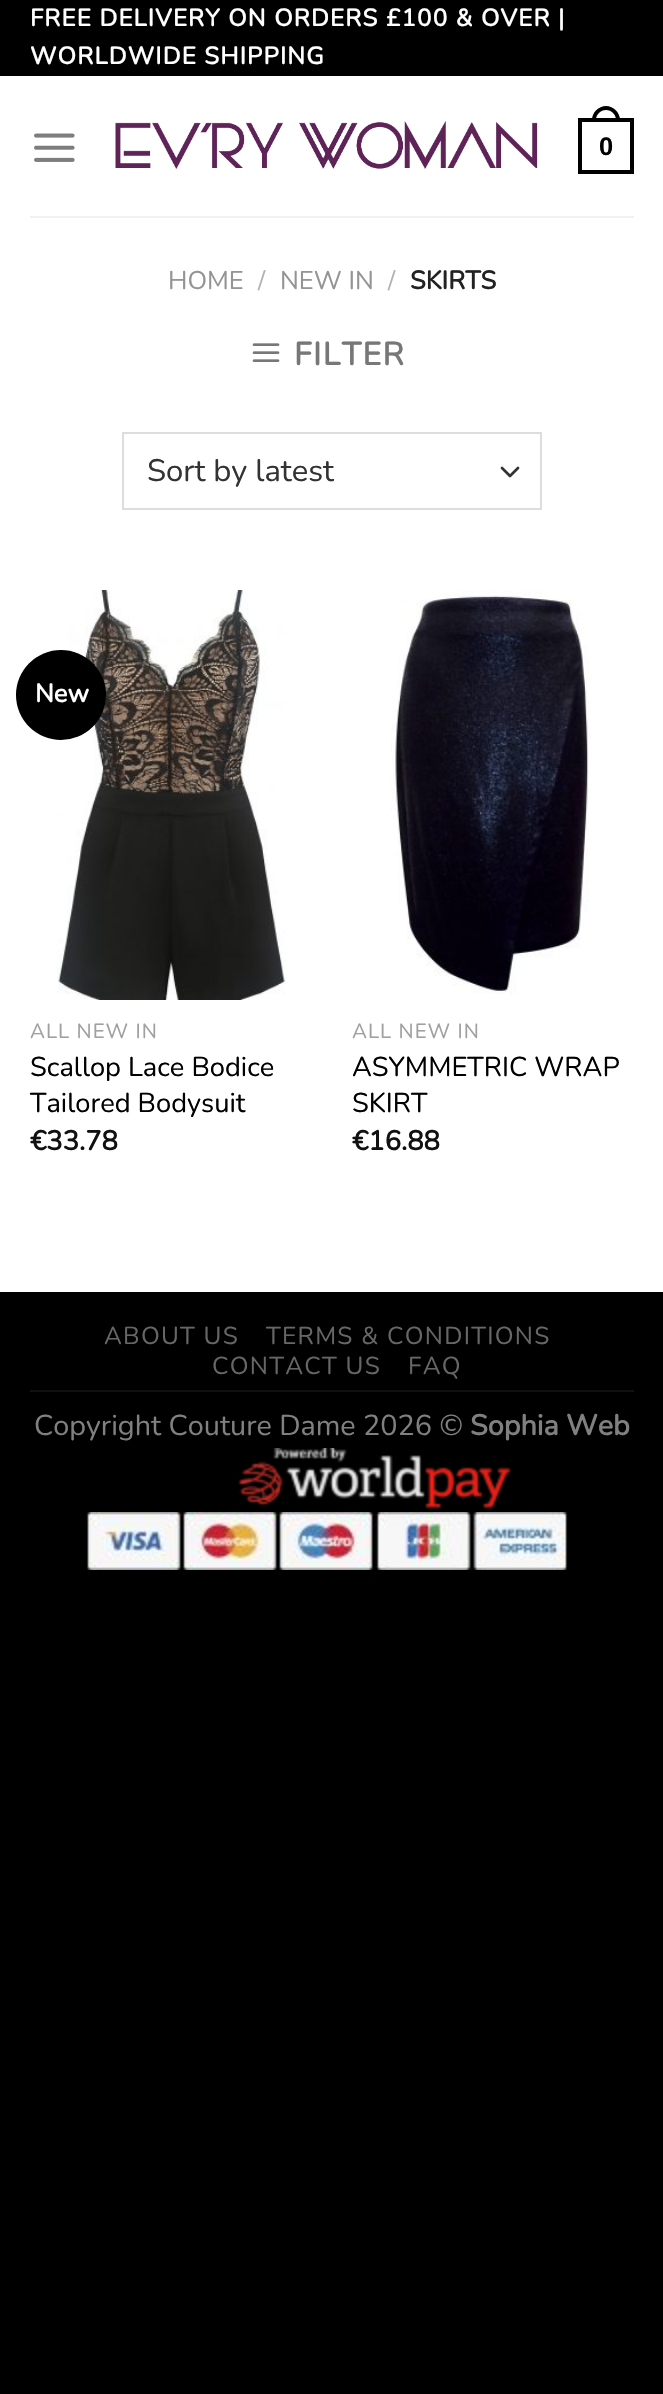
void draw(SkCanvas* canvas) {
  SkPaint paint;
  paint.setAntiAlias(true);
  auto face = [&](const char* family, int weight, float size, bool italic = false) {
    SkFontStyle style(weight, SkFontStyle::kNormal_Width,
      italic ? SkFontStyle::kItalic_Slant : SkFontStyle::kUpright_Slant);
    SkFont result(fontMgr->matchFamilyStyle(family, style), size);
    result.setSubpixel(true);
    return result;
  };
  auto writeSpaced = [&](const char* s, float x, float y, const SkFont& font, const SkPaint& ink, float letter, float word) {
    std::vector<SkGlyphID> glyphs(font.countText(s, strlen(s), SkTextEncoding::kUTF8));
    std::vector<float> xs(glyphs.size());
    font.textToGlyphs(s, strlen(s), SkTextEncoding::kUTF8, glyphs);
    font.getXPos(glyphs, xs, x);
    float extra = 0;
    for (size_t i = 0; i < glyphs.size(); i++) {
      xs[i] += extra;
      extra += letter + word * (glyphs[i] == font.unicharToGlyph(' '));
    }
    canvas->drawTextBlob(SkTextBlob::MakeFromPosHGlyphs(glyphs, xs, y, font), 0, 0, ink);
  };
  auto paste = [&](const char* path, float x, float y, float w, float h) {
    auto image = SkImages::DeferredFromEncodedData(SkData::MakeFromFileName(path));
    canvas->drawImageRect(image, SkRect::MakeXYWH(x, y, w, h), SkSamplingOptions());
  };
  auto shape = [&](const char* data, bool evenOdd = false) {
    SkPath result = *SkParsePath::FromSVGString(data);
    if (evenOdd) result.setFillType(SkPathFillType::kEvenOdd);
    return result;
  };
  canvas->clear(0xff000000);
  paint.setColor(0xffffffff);
  canvas->drawRect(SkRect::MakeXYWH(0, 76, 663, 1216), paint);
  paste("img/1.png", 34, 133, 41, 29);
  paste("img/2.png", 115, 121, 423, 48);
  paint.setStroke(true);
  paint.setStrokeWidth(4);
  paint.setColor(0xff000000);
  canvas->drawRect(SkRect::MakeXYWH(580, 120, 52, 52), paint);
  paint.setStroke(false);
  canvas->drawPath(shape("M606 106C613.5 106 620 112.5 620 120V122H592V120C592 112.5 598.5 106 606 106ZM606 110C611.5 110 616 114.5 616 120V122H596V120C596 114.5 600.5 110 606 110Z", true), paint);
  paint.setColor(0xfff1f1f1);
  canvas->drawRect(SkRect::MakeXYWH(30, 216, 604, 2), paint);
  paste("img/3.png", 252, 343, 28, 19);
  paint.setStroke(true);
  paint.setStrokeWidth(2.7f);
  paint.setStrokeCap(SkPaint::kRound_Cap);
  paint.setStrokeJoin(SkPaint::kRound_Join);
  paint.setColor(0xff333333);
  canvas->drawPath(shape("M502 468L510 476L518 468"), paint);
  paint.setStrokeWidth(2);
  paint.setStrokeCap(SkPaint::kButt_Cap);
  paint.setStrokeJoin(SkPaint::kMiter_Join);
  paint.setColor(0xffdddddd);
  canvas->drawRect(SkRect::MakeXYWH(123, 433, 418, 76), paint);
  paste("img/4.png", 57, 590, 229, 410);
  paint.setStroke(false);
  paint.setColor(0xff000000);
  canvas->drawCircle(61, 695, 45, paint);
  paste("img/5.png", 391, 590, 198, 404);
  paint.setColor(0xff101010);
  canvas->drawRect(SkRect::MakeXYWH(30, 1390, 604, 2), paint);
  paste("img/6.png", 238, 1448, 273, 61);
  paste("img/7.png", 86, 1512, 482, 58);
  auto f0 = face("Nunito", 700, 24);
  paint.setColor(0xffffffff);
  writeSpaced("FREE DELIVERY ON ORDERS £100 & OVER |", 30, 26, f0, paint, 1.2f, 0);
  writeSpaced("WORLDWIDE SHIPPING", 30, 64, f0, paint, 1.2f, 0);
  auto f1 = face("Liberation Sans", 700, 25.5f);
  paint.setColor(0xff000000);
  canvas->drawString("0", 599, 155, f1, paint);
  auto f2 = face("Nunito", 200, 25.5f);
  paint.setColor(0xff949494);
  canvas->drawString("HOME", 168, 289, f2, paint);
  paint.setColor(0xffb2b2b2);
  canvas->drawString("/", 258, 289, f2, paint);
  paint.setColor(0xff949494);
  canvas->drawString("NEW IN", 280, 289, f2, paint);
  paint.setColor(0xffb2b2b2);
  canvas->drawString("/", 388, 289, f2, paint);
  auto f3 = face("Nunito", 700, 25.5f);
  paint.setColor(0xff222222);
  canvas->drawString("SKIRTS", 410, 289, f3, paint);
  auto f4 = face("Nunito", 700, 32);
  paint.setColor(0xff777777);
  writeSpaced("FILTER", 294, 365, f4, paint, 1.5f, 0);
  auto f5 = face("Nunito", 200, 31);
  paint.setColor(0xff333333);
  canvas->drawString("Sort by latest", 147, 481, f5, paint);
  paint.setColor(0xffffffff);
  canvas->drawString("New", 35, 702, f3, paint);
  auto f6 = face("Nunito", 200, 20.5f);
  paint.setColor(0xffa0a0a0);
  writeSpaced("ALL NEW IN", 30, 1038, f6, paint, 1, 0);
  auto f7 = face("Nunito", 200, 27.25f);
  paint.setColor(0xff000000);
  canvas->drawString("Scallop Lace Bodice", 30, 1076, f7, paint);
  canvas->drawString("Tailored Bodysuit", 30, 1112, f7, paint);
  auto f8 = face("Nunito", 700, 27.25f);
  paint.setColor(0xff111111);
  canvas->drawString("€33.78", 30, 1150, f8, paint);
  paint.setColor(0xffa0a0a0);
  writeSpaced("ALL NEW IN", 352, 1038, f6, paint, 1, 0);
  paint.setColor(0xff000000);
  canvas->drawString("ASYMMETRIC WRAP", 352, 1076, f7, paint);
  canvas->drawString("SKIRT", 352, 1112, f7, paint);
  paint.setColor(0xff111111);
  canvas->drawString("€16.88", 352, 1150, f8, paint);
  auto f9 = face("Nunito", 200, 24.5f);
  paint.setColor(0xff666666);
  {
    const struct { const char* s; float x, y; } items[] = {
      {"ABOUT US", 104, 1344},
      {"TERMS & CONDITIONS", 266, 1344},
      {"CONTACT US", 212, 1374},
      {"FAQ", 408, 1374},
    };
    for (auto [s, x, y] : items) {
      writeSpaced(s, x, y, f9, paint, 1.25f, 0);
    }
  }
  auto f10 = face("Nunito", 200, 28.75f);
  paint.setColor(0xff808080);
  canvas->drawString("Copyright Couture Dame 2026 ©", 34, 1435, f10, paint);
  auto f11 = face("Nunito", 700, 28.75f);
  canvas->drawString("Sophia Web", 470, 1435, f11, paint);
}
